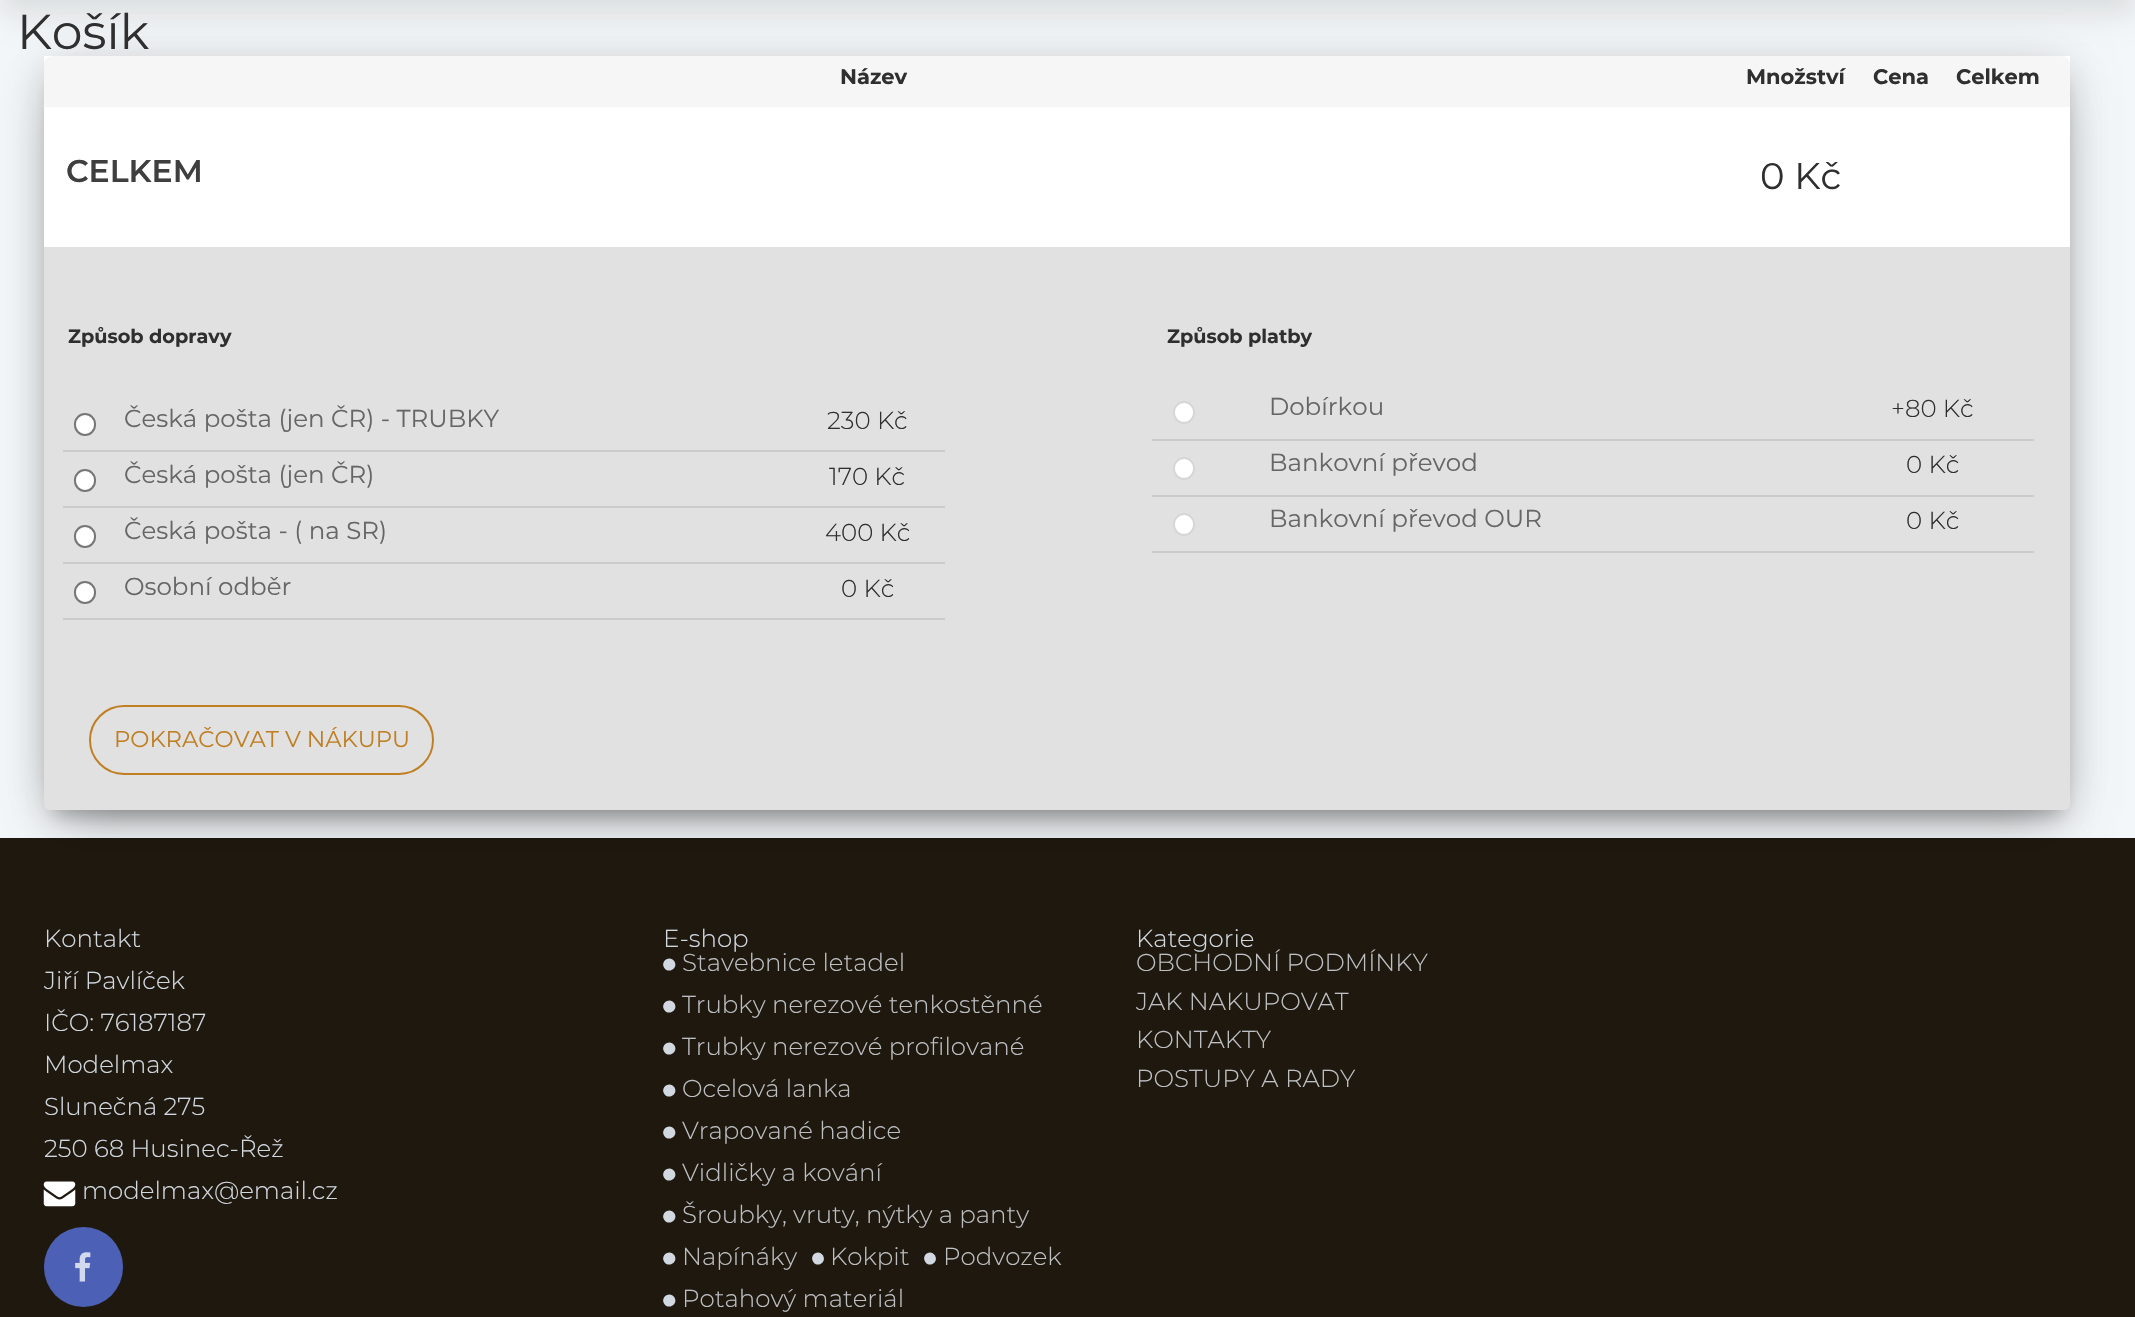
void draw(SkCanvas* canvas) {
  SkPaint paint;
  paint.setAntiAlias(true);
  auto face = [&](const char* family, int weight, float size, bool italic = false) {
    SkFontStyle style(weight, SkFontStyle::kNormal_Width,
      italic ? SkFontStyle::kItalic_Slant : SkFontStyle::kUpright_Slant);
    SkFont result(fontMgr->matchFamilyStyle(family, style), size);
    result.setSubpixel(true);
    return result;
  };
  auto paste = [&](const char* path, float x, float y, float w, float h) {
    auto image = SkImages::DeferredFromEncodedData(SkData::MakeFromFileName(path));
    canvas->drawImageRect(image, SkRect::MakeXYWH(x, y, w, h), SkSamplingOptions());
  };
  auto shape = [&](const char* data, bool evenOdd = false) {
    SkPath result = *SkParsePath::FromSVGString(data);
    if (evenOdd) result.setFillType(SkPathFillType::kEvenOdd);
    return result;
  };
  canvas->clear(0xff1e180e);
  paint.setColor(0xfff4f7f9);
  canvas->drawRect(SkRect::MakeXYWH(0, 0, 2135, 838), paint);
  paint.setColor(0x33000000);
  paint.setMaskFilter(SkMaskFilter::MakeBlur(kNormal_SkBlurStyle, 9));
  canvas->drawRect(SkRect::MakeXYWH(53, 79, 2009, 737), paint);
  paint.setMaskFilter(nullptr);
  paint.setColor(0x1f000000);
  paint.setMaskFilter(SkMaskFilter::MakeBlur(kNormal_SkBlurStyle, 22));
  canvas->drawRoundRect(SkRect::MakeXYWH(44, 63, 2026, 754), 5, 5, paint);
  paint.setMaskFilter(nullptr);
  paint.setColor(0x6b000000);
  paint.setMaskFilter(SkMaskFilter::MakeBlur(kNormal_SkBlurStyle, 26));
  canvas->drawRect(SkRect::MakeXYWH(65, 95, 1984, 712), paint);
  paint.setMaskFilter(nullptr);
  paint.setColor(0xffe1e1e1);
  canvas->drawRoundRect(SkRect::MakeXYWH(44, 56, 2026, 754), 5, 5, paint);
  paint.setColor(0xffffffff);
  canvas->drawRect(SkRect::MakeXYWH(44, 56, 2026, 191), paint);
  paint.setColor(0xfff6f6f6);
  canvas->drawPath(shape("M53 56H2061C2066 56 2070 60 2070 65V107H44V65C44 60 48 56 53 56Z"), paint);
  paint.setColor(0x1a000000);
  paint.setMaskFilter(SkMaskFilter::MakeBlur(kNormal_SkBlurStyle, 14));
  canvas->drawRect(SkRect::MakeXYWH(0, -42, 2135, 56), paint);
  paint.setMaskFilter(nullptr);
  paint.setColor(0xffdadada);
  canvas->drawRect(SkRect::MakeXYWH(42, 105, 2, 2), paint);
  paint.setColor(0xffcbcbcb);
  canvas->drawRect(SkRect::MakeXYWH(63, 450, 882, 2), paint);
  paint.setColor(0xffffffff);
  canvas->drawRoundRect(SkRect::MakeXYWH(75, 414, 20, 21), 10, 10, paint);
  paint.setStroke(true);
  paint.setStrokeWidth(2);
  paint.setColor(0xff767676);
  canvas->drawRoundRect(SkRect::MakeXYWH(75, 414, 20, 21), 10, 10, paint);
  paint.setStroke(false);
  paint.setColor(0xffcbcbcb);
  canvas->drawRect(SkRect::MakeXYWH(63, 506, 882, 2), paint);
  paint.setColor(0xffffffff);
  canvas->drawRoundRect(SkRect::MakeXYWH(75, 470, 20, 21), 10, 10, paint);
  paint.setStroke(true);
  paint.setColor(0xff767676);
  canvas->drawRoundRect(SkRect::MakeXYWH(75, 470, 20, 21), 10, 10, paint);
  paint.setStroke(false);
  paint.setColor(0xffcbcbcb);
  canvas->drawRect(SkRect::MakeXYWH(63, 562, 882, 2), paint);
  paint.setColor(0xffffffff);
  canvas->drawRoundRect(SkRect::MakeXYWH(75, 526, 20, 21), 10, 10, paint);
  paint.setStroke(true);
  paint.setColor(0xff767676);
  canvas->drawRoundRect(SkRect::MakeXYWH(75, 526, 20, 21), 10, 10, paint);
  paint.setStroke(false);
  paint.setColor(0xffcbcbcb);
  canvas->drawRect(SkRect::MakeXYWH(63, 618, 882, 2), paint);
  paint.setColor(0xffffffff);
  canvas->drawRoundRect(SkRect::MakeXYWH(75, 582, 20, 21), 10, 10, paint);
  paint.setStroke(true);
  paint.setColor(0xff767676);
  canvas->drawRoundRect(SkRect::MakeXYWH(75, 582, 20, 21), 10, 10, paint);
  paint.setStroke(false);
  paint.setColor(0xffcbcbcb);
  canvas->drawRect(SkRect::MakeXYWH(1152, 439, 882, 2), paint);
  paint.setColor(0xffffffff);
  canvas->drawRoundRect(SkRect::MakeXYWH(1173, 401, 22, 23), 11, 11, paint);
  paint.setStroke(true);
  paint.setColor(0x4d767676);
  canvas->drawRoundRect(SkRect::MakeXYWH(1174, 402, 20, 21), 10, 10, paint);
  paint.setStroke(false);
  paint.setColor(0xffcbcbcb);
  canvas->drawRect(SkRect::MakeXYWH(1152, 495, 882, 2), paint);
  paint.setColor(0xffffffff);
  canvas->drawRoundRect(SkRect::MakeXYWH(1173, 457, 22, 23), 11, 11, paint);
  paint.setStroke(true);
  paint.setColor(0x4d767676);
  canvas->drawRoundRect(SkRect::MakeXYWH(1174, 458, 20, 21), 10, 10, paint);
  paint.setStroke(false);
  paint.setColor(0xffcbcbcb);
  canvas->drawRect(SkRect::MakeXYWH(1152, 551, 882, 2), paint);
  paint.setColor(0xffffffff);
  canvas->drawRoundRect(SkRect::MakeXYWH(1173, 513, 22, 23), 11, 11, paint);
  paint.setStroke(true);
  paint.setColor(0x4d767676);
  canvas->drawRoundRect(SkRect::MakeXYWH(1174, 514, 20, 21), 10, 10, paint);
  paint.setColor(0xffbf7f22);
  canvas->drawRoundRect(SkRect::MakeXYWH(90, 706, 343, 68), 34, 34, paint);
  paste("img/1.png", 43, 1181, 33, 26);
  paint.setStroke(false);
  paint.setColor(0xff4c61b5);
  canvas->drawRoundRect(SkRect::MakeXYWH(44, 1227, 79, 80), 39.5f, 39.5f, paint);
  paste("img/2.png", 75, 1252, 16, 30);
  paint.setColor(0xffd2d8e0);
  canvas->drawPath(shape("M674.5 961.5C678.5 968.5 668 974.5 664 967.5C660 960.5 670.5 954.5 674.5 961.5Z"), paint);
  canvas->drawPath(shape("M674.5 1003.5C678.5 1010.5 668 1016.5 664 1009.5C660 1002.5 670.5 996.5 674.5 1003.5Z"), paint);
  canvas->drawPath(shape("M674.5 1045.5C678.5 1052.5 668 1058.5 664 1051.5C660 1044.5 670.5 1038.5 674.5 1045.5Z"), paint);
  canvas->drawPath(shape("M674.5 1087.5C678.5 1094.5 668 1100.5 664 1093.5C660 1086.5 670.5 1080.5 674.5 1087.5Z"), paint);
  canvas->drawPath(shape("M674.5 1129.5C678.5 1136.5 668 1142.5 664 1135.5C660 1128.5 670.5 1122.5 674.5 1129.5Z"), paint);
  canvas->drawPath(shape("M674.5 1171.5C678.5 1178.5 668 1184.5 664 1177.5C660 1170.5 670.5 1164.5 674.5 1171.5Z"), paint);
  canvas->drawPath(shape("M674.5 1213.5C678.5 1220.5 668 1226.5 664 1219.5C660 1212.5 670.5 1206.5 674.5 1213.5Z"), paint);
  canvas->drawPath(shape("M674.5 1255.5C678.5 1262.5 668 1268.5 664 1261.5C660 1254.5 670.5 1248.5 674.5 1255.5Z"), paint);
  canvas->drawPath(shape("M823 1255.5C827 1262.5 817 1268.5 813 1261.5C809 1254.5 819 1248.5 823 1255.5Z"), paint);
  canvas->drawPath(shape("M935 1255.5C939 1262.5 929 1268.5 925 1261.5C921 1254.5 931 1248.5 935 1255.5Z"), paint);
  canvas->drawPath(shape("M674.5 1297.5C678.5 1304.5 668 1310.5 664 1303.5C660 1296.5 670.5 1290.5 674.5 1297.5Z"), paint);
  auto f0 = face("Montserrat", 400, 49);
  paint.setColor(0xff2f2f2f);
  canvas->drawString("Košík", 17, 49, f0, paint);
  auto f1 = face("Montserrat", 700, 21);
  {
    const struct { const char* s; float x, y; } items[] = {
      {"Název", 840, 84},
      {"Množství", 1746, 84},
      {"Cena", 1873, 84},
      {"Celkem", 1956, 84},
    };
    for (auto [s, x, y] : items) {
      canvas->drawString(s, x, y, f1, paint);
    }
  }
  auto f2 = face("Montserrat", 600, 31.5f);
  paint.setColor(0xff3f3f3f);
  canvas->drawString("CELKEM", 66, 182, f2, paint);
  auto f3 = face("Montserrat", 400, 37);
  paint.setColor(0xff2f2f2f);
  canvas->drawString("0 Kč", 1760, 189, f3, paint);
  auto f4 = face("Montserrat", 700, 19.25f);
  canvas->drawString("Způsob dopravy", 68, 343, f4, paint);
  canvas->drawString("Způsob platby", 1167, 343, f4, paint);
  auto f5 = face("Montserrat", 400, 24.5f);
  paint.setColor(0xff666666);
  canvas->drawString("Česká pošta (jen ČR) - TRUBKY", 124, 427, f5, paint);
  auto f6 = face("Montserrat", 300, 24.5f);
  paint.setColor(0xff2f2f2f);
  canvas->drawString("230 Kč", 827, 429, f6, paint);
  paint.setColor(0xff666666);
  canvas->drawString("Česká pošta (jen ČR)", 124, 483, f5, paint);
  paint.setColor(0xff2f2f2f);
  canvas->drawString("170 Kč", 829, 485, f6, paint);
  paint.setColor(0xff666666);
  canvas->drawString("Česká pošta - ( na SR)", 124, 539, f5, paint);
  paint.setColor(0xff2f2f2f);
  canvas->drawString("400 Kč", 825, 541, f6, paint);
  paint.setColor(0xff666666);
  canvas->drawString("Osobní odběr", 124, 595, f5, paint);
  paint.setColor(0xff2f2f2f);
  canvas->drawString("0 Kč", 841, 597, f6, paint);
  paint.setColor(0xff666666);
  canvas->drawString("Dobírkou", 1269, 415, f5, paint);
  paint.setColor(0xff2f2f2f);
  canvas->drawString("+80 Kč", 1891, 417, f6, paint);
  paint.setColor(0xff666666);
  canvas->drawString("Bankovní převod", 1269, 471, f5, paint);
  paint.setColor(0xff2f2f2f);
  canvas->drawString("0 Kč", 1906, 473, f6, paint);
  paint.setColor(0xff666666);
  canvas->drawString("Bankovní převod OUR", 1269, 527, f5, paint);
  paint.setColor(0xff2f2f2f);
  canvas->drawString("0 Kč", 1906, 529, f6, paint);
  auto f7 = face("Montserrat", 400, 22.75f);
  paint.setColor(0xffbf7f22);
  canvas->drawString("POKRAČOVAT V NÁKUPU", 114, 747, f7, paint);
  paint.setColor(0xffd2d8e0);
  {
    const struct { const char* s; float x, y; } items[] = {
      {"Kontakt", 44, 947},
      {"Jiří Pavlíček", 44, 989},
      {"IČO: 76187187", 44, 1031},
      {"Modelmax", 44, 1073},
      {"Slunečná 275", 44, 1115},
      {"250 68 Husinec-Řež", 44, 1157},
      {"modelmax@email.cz", 82, 1199},
      {"E-shop", 663, 947},
    };
    for (auto [s, x, y] : items) {
      canvas->drawString(s, x, y, f6, paint);
    }
  }
  paint.setColor(0xffbdbfc3);
  {
    const struct { const char* s; float x, y; } items[] = {
      {"Stavebnice letadel", 682, 971},
      {"Trubky nerezové tenkostěnné", 682, 1013},
      {"Trubky nerezové profilované", 682, 1055},
      {"Ocelová lanka", 682, 1097},
      {"Vrapované hadice", 682, 1139},
      {"Vidličky a kování", 682, 1181},
      {"Šroubky, vruty, nýtky a panty", 682, 1223},
      {"Napínáky", 682, 1265},
      {"Kokpit", 830, 1265},
      {"Podvozek", 943, 1265},
      {"Potahový materiál", 682, 1307},
    };
    for (auto [s, x, y] : items) {
      canvas->drawString(s, x, y, f6, paint);
    }
  }
  paint.setColor(0xffd2d8e0);
  canvas->drawString("Kategorie", 1136, 947, f6, paint);
  paint.setColor(0xffbdbfc3);
  {
    const struct { const char* s; float x, y; } items[] = {
      {"OBCHODNÍ PODMÍNKY", 1136, 971},
      {"JAK NAKUPOVAT", 1136, 1010},
      {"KONTAKTY", 1136, 1048},
      {"POSTUPY A RADY", 1136, 1087},
    };
    for (auto [s, x, y] : items) {
      canvas->drawString(s, x, y, f6, paint);
    }
  }
}
